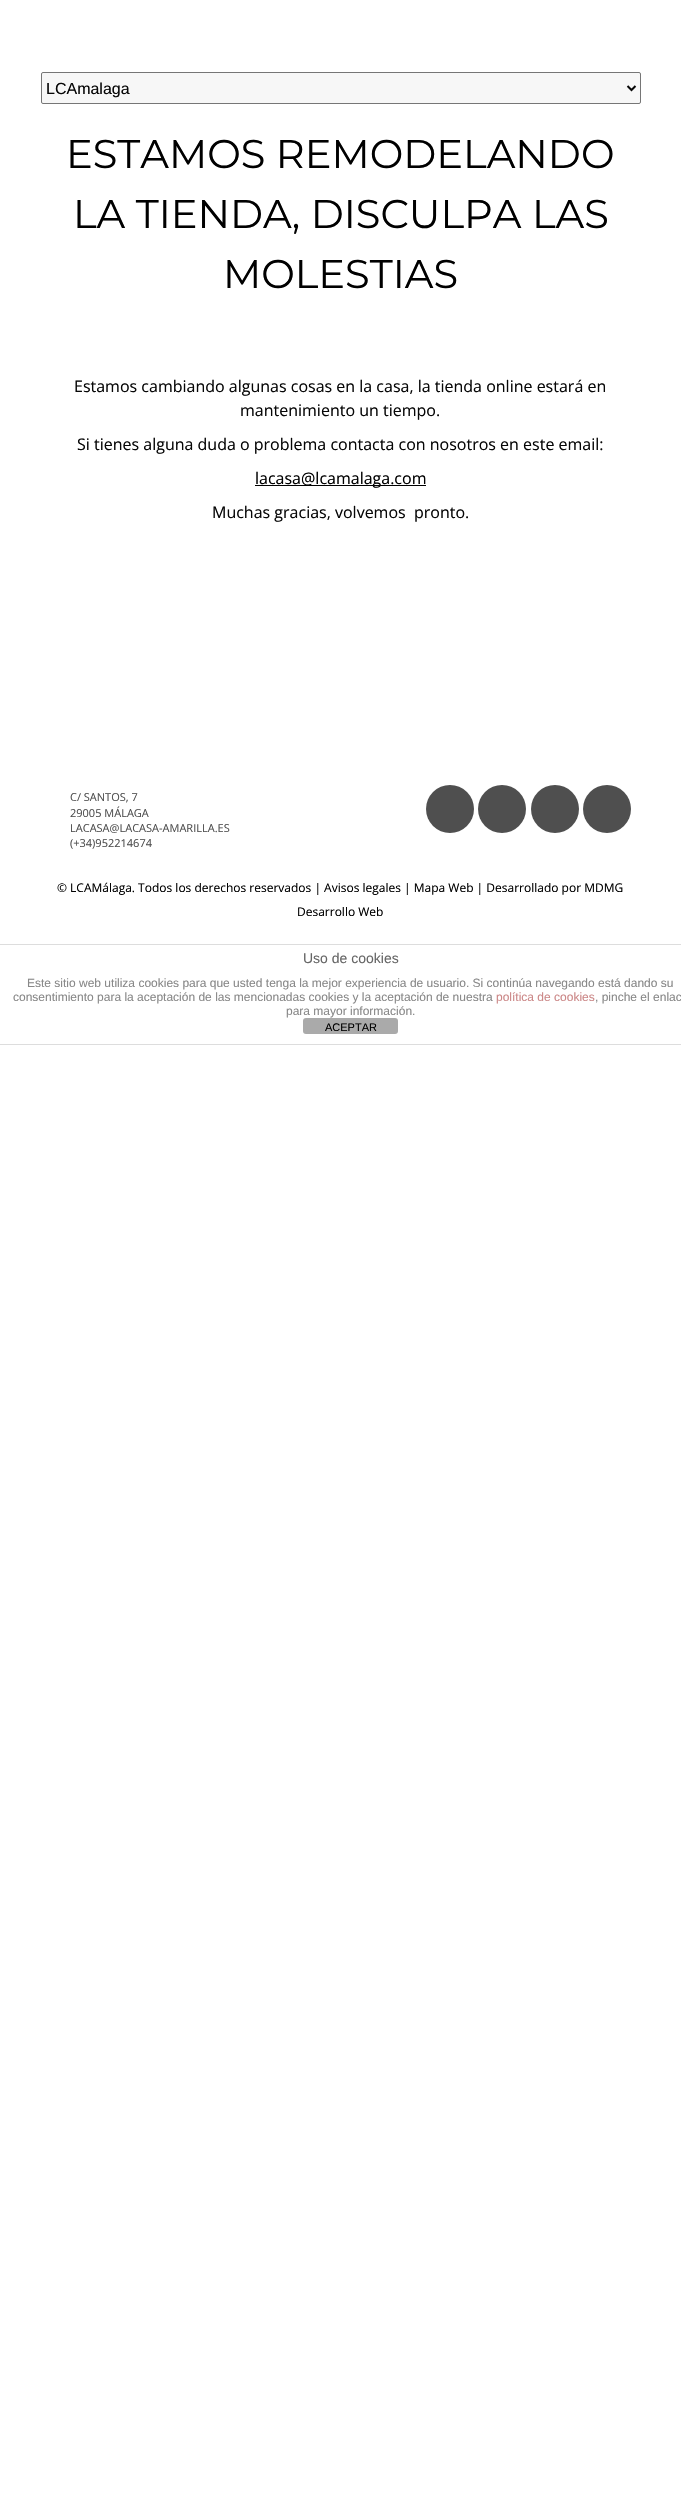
void draw(SkCanvas* canvas) {
  SkPaint paint;
  paint.setAntiAlias(true);
  auto face = [&](const char* family, int weight, float size, bool italic = false) {
    SkFontStyle style(weight, SkFontStyle::kNormal_Width,
      italic ? SkFontStyle::kItalic_Slant : SkFontStyle::kUpright_Slant);
    SkFont result(fontMgr->matchFamilyStyle(family, style), size);
    result.setSubpixel(true);
    return result;
  };
  auto shape = [&](const char* data, bool evenOdd = false) {
    SkPath result = *SkParsePath::FromSVGString(data);
    if (evenOdd) result.setFillType(SkPathFillType::kEvenOdd);
    return result;
  };
  canvas->clear(0xffffffff);
  paint.setColor(0xfff7f7f7);
  canvas->drawRoundRect(SkRect::MakeXYWH(41.5f, 72.5f, 599, 31), 1.5f, 1.5f, paint);
  paint.setStroke(true);
  paint.setStrokeWidth(1);
  paint.setColor(0xff767676);
  canvas->drawRoundRect(SkRect::MakeXYWH(41.5f, 72.5f, 599, 31), 1.5f, 1.5f, paint);
  paint.setStrokeWidth(2);
  paint.setColor(0xff070707);
  canvas->drawPath(shape("M627.5 86L631.5 90L635.5 86"), paint);
  paint.setStroke(false);
  paint.setColor(0xff000000);
  canvas->drawRect(SkRect::MakeXYWH(255, 485, 171, 1), paint);
  paint.setColor(0xff4f4f4f);
  canvas->drawCircle(450, 809, 24, paint);
  canvas->drawCircle(502, 809, 24, paint);
  canvas->drawCircle(555, 809, 24, paint);
  canvas->drawCircle(607, 809, 24, paint);
  paint.setColor(0xffdddddd);
  canvas->drawRect(SkRect::MakeXYWH(0, 944, 681, 1), paint);
  canvas->drawRect(SkRect::MakeXYWH(0, 1044, 681, 1), paint);
  paint.setColor(0xffaaaaaa);
  canvas->drawRoundRect(SkRect::MakeXYWH(303, 1018, 95, 16), 3, 3, paint);
  auto f0 = face("Liberation Sans", 400, 16);
  paint.setColor(0xff070707);
  canvas->drawString("LCAmalaga", 46, 94, f0, paint);
  auto f1 = face("Montserrat", 100, 40);
  paint.setColor(0xff000000);
  {
    const struct { const char* s; float x, y; } items[] = {
      {"ESTAMOS REMODELANDO", 66, 168},
      {"LA TIENDA, DISCULPA LAS", 73, 228},
      {"MOLESTIAS", 223, 288},
    };
    for (auto [s, x, y] : items) {
      canvas->drawString(s, x, y, f1, paint);
    }
  }
  auto f2 = face("Open Sans", 400, 16);
  paint.setColor(0xff070707);
  {
    const struct { const char* s; float x, y; } items[] = {
      {"Estamos cambiando algunas cosas en la casa, la tienda online estará en", 74, 392},
      {"mantenimiento un tiempo.", 240, 416},
      {"Si tienes alguna duda o problema contacta con nosotros en este email:", 77, 450},
    };
    for (auto [s, x, y] : items) {
      canvas->drawString(s, x, y, f2, paint);
    }
  }
  paint.setColor(0xff000000);
  canvas->drawString("lacasa@lcamalaga.com", 255, 484, f2, paint);
  paint.setColor(0xff070707);
  canvas->drawString("Muchas gracias, volvemos  pronto.", 212, 518, f2, paint);
  auto f3 = face("Open Sans", 400, 11);
  paint.setColor(0xff4f4f4f);
  {
    const struct { const char* s; float x, y; } items[] = {
      {"C/ SANTOS, 7", 70, 801},
      {"29005 MÁLAGA", 70, 817},
      {"LACASA@LACASA-AMARILLA.ES", 70, 832},
      {"(+34)952214674", 70, 847},
    };
    for (auto [s, x, y] : items) {
      canvas->drawString(s, x, y, f3, paint);
    }
  }
  auto f4 = face("Open Sans", 400, 12);
  paint.setColor(0xff000000);
  canvas->drawString("© LCAMálaga. Todos los derechos reservados | Avisos legales | Mapa Web | Desarrollado por MDMG", 57, 892, f4, paint);
  canvas->drawString("Desarrollo Web", 297, 916, f4, paint);
  auto f5 = face("Liberation Sans", 400, 14);
  paint.setColor(0xff666666);
  canvas->drawString("Uso de cookies", 303, 963, f5, paint);
  auto f6 = face("Liberation Sans", 400, 12);
  paint.setColor(0xff888888);
  canvas->drawString("Este sitio web utiliza cookies para que usted tenga la mejor experiencia de usuario. Si continúa navegando está dando su", 27, 987, f6, paint);
  canvas->drawString("consentimiento para la aceptación de las mencionadas cookies y la aceptación de nuestra", 13, 1001, f6, paint);
  paint.setColor(0xffcc8888);
  canvas->drawString("política de cookies", 496, 1001, f6, paint);
  paint.setColor(0xff888888);
  canvas->drawString(", pinche el enlac", 595, 1001, f6, paint);
  canvas->drawString("para mayor información.", 286, 1015, f6, paint);
  auto f7 = face("Liberation Sans", 400, 11);
  paint.setColor(0xff000000);
  canvas->drawString("ACEPTAR", 325, 1031, f7, paint);
}
